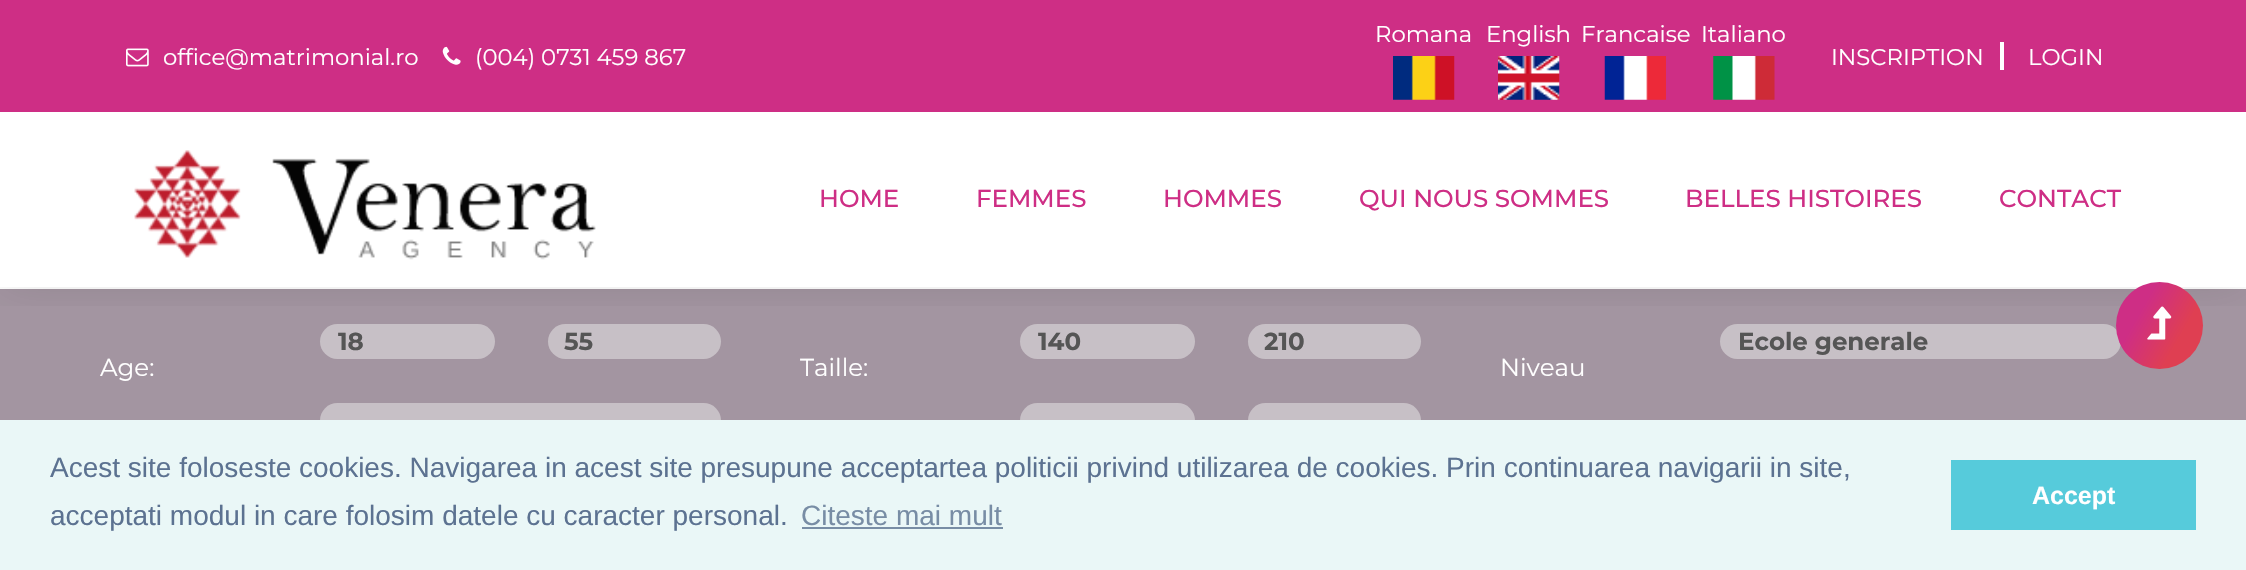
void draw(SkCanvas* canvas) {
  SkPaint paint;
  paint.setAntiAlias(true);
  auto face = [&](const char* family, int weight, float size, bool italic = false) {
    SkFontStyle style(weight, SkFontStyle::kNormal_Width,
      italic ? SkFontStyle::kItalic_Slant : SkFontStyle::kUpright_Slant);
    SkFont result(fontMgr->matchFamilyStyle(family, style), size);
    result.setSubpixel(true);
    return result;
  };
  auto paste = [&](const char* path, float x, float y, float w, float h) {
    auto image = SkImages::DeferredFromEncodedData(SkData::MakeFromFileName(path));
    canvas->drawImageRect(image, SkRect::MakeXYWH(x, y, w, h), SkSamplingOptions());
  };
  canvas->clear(0xffffffff);
  paint.setColor(0xffa395a1);
  canvas->drawRect(SkRect::MakeXYWH(0, 289, 2246, 131), paint);
  paint.setColor(0xffc7c0c6);
  canvas->drawRoundRect(SkRect::MakeXYWH(320, 324, 175, 35), 17.5f, 17.5f, paint);
  canvas->drawRoundRect(SkRect::MakeXYWH(548, 324, 173, 35), 17.5f, 17.5f, paint);
  canvas->drawRoundRect(SkRect::MakeXYWH(1020, 324, 175, 35), 17.5f, 17.5f, paint);
  canvas->drawRoundRect(SkRect::MakeXYWH(1248, 324, 173, 35), 17.5f, 17.5f, paint);
  canvas->drawRoundRect(SkRect::MakeXYWH(1720, 324, 401, 35), 17.5f, 17.5f, paint);
  canvas->save();
  canvas->clipRect(SkRect::MakeXYWH(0, 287, 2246, 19));
  paint.setColor(0x1a000000);
  paint.setMaskFilter(SkMaskFilter::MakeBlur(kNormal_SkBlurStyle, 22));
  canvas->drawRect(SkRect::MakeXYWH(0, 0, 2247, 287), paint);
  paint.setMaskFilter(nullptr);
  canvas->restore();
  paint.setColor(0xffce2e85);
  canvas->drawRect(SkRect::MakeXYWH(0, 0, 2246, 112), paint);
  paste("img/1.png", 126, 48, 23, 19);
  paste("img/2.png", 442, 46, 19, 19);
  paste("img/3.png", 1393, 56, 62, 44);
  paste("img/4.png", 1498, 56, 62, 44);
  paste("img/5.png", 1604, 56, 62, 44);
  paste("img/6.png", 1713, 56, 62, 44);
  paint.setColor(0xffffffff);
  canvas->drawRect(SkRect::MakeXYWH(2000, 42, 4, 28), paint);
  paste("img/7.png", 134, 150, 462, 110);
  paint.setColor(0xffc7c0c6);
  canvas->drawRoundRect(SkRect::MakeXYWH(320, 403, 401, 35), 17.5f, 17.5f, paint);
  canvas->drawRoundRect(SkRect::MakeXYWH(1020, 403, 175, 35), 17.5f, 17.5f, paint);
  canvas->drawRoundRect(SkRect::MakeXYWH(1248, 403, 173, 35), 17.5f, 17.5f, paint);
  {
    const SkColor colors[] = {0xffce2e85, 0xffdf3f52};
    const float stops[] = {0.3f, 0.7f};
    const SkPoint ends[] = {{2108, 296}, {2211, 355}};
    paint.setShader(SkGradientShader::MakeLinear(ends, colors, stops, 2, SkTileMode::kClamp));
    paint.setAlpha(255);
  }
  canvas->drawCircle(2159.5f, 325.5f, 43.5f, paint);
  paste("img/8.png", 2147, 306, 25, 34);
  paint.setShader(nullptr);
  {
    const struct { float x, y, w, h; SkColor color; } items[] = {
      {0, 420, 2246, 150, 0xffeaf7f7},
      {802, 527, 201, 2, 0xff788da5},
      {1951, 460, 245, 70, 0xff56cbdb},
    };
    for (auto [x, y, w, h, color] : items) {
      paint.setColor(color);
      canvas->drawRect(SkRect::MakeXYWH(x, y, w, h), paint);
    }
  }
  auto f0 = face("Montserrat", 400, 22.75f);
  paint.setColor(0xffffffff);
  {
    const struct { const char* s; float x, y; } items[] = {
      {"office@matrimonial.ro", 163, 65},
      {"(004) 0731 459 867", 475, 65},
      {"Romana", 1375, 42},
      {"English", 1486, 42},
      {"Francaise", 1581, 42},
      {"Italiano", 1701, 42},
      {"INSCRIPTION", 1831, 65},
      {"LOGIN", 2028, 65},
    };
    for (auto [s, x, y] : items) {
      canvas->drawString(s, x, y, f0, paint);
    }
  }
  auto f1 = face("Montserrat", 500, 24.5f);
  paint.setColor(0xffce2e85);
  {
    const struct { const char* s; float x, y; } items[] = {
      {"HOME", 819, 207},
      {"FEMMES", 976, 207},
      {"HOMMES", 1163, 207},
      {"QUI NOUS SOMMES", 1359, 207},
      {"BELLES HISTOIRES", 1685, 207},
      {"CONTACT", 1999, 207},
    };
    for (auto [s, x, y] : items) {
      canvas->drawString(s, x, y, f1, paint);
    }
  }
  canvas->save();
  canvas->clipRect(SkRect::MakeXYWH(338, 324, 140, 35));
  auto f2 = face("Montserrat", 700, 24.5f);
  paint.setColor(0xff555555);
  canvas->drawString("18", 338, 350, f2, paint);
  canvas->restore();
  canvas->drawString("55", 564, 350, f2, paint);
  auto f3 = face("Montserrat", 400, 24.5f);
  paint.setColor(0xffffffff);
  canvas->drawString("Age:", 100, 376, f3, paint);
  canvas->save();
  canvas->clipRect(SkRect::MakeXYWH(1038, 324, 140, 35));
  paint.setColor(0xff555555);
  canvas->drawString("140", 1038, 350, f2, paint);
  canvas->restore();
  canvas->drawString("210", 1264, 350, f2, paint);
  paint.setColor(0xffffffff);
  canvas->drawString("Taille:", 800, 376, f3, paint);
  paint.setColor(0xff555555);
  canvas->drawString("Ecole generale", 1738, 350, f2, paint);
  paint.setColor(0xffffffff);
  canvas->drawString("Niveau", 1500, 376, f3, paint);
  auto f4 = face("Liberation Sans", 400, 28);
  paint.setColor(0xff5c7291);
  canvas->drawString("Acest site foloseste cookies. Navigarea in acest site presupune acceptartea politicii privind utilizarea de cookies. Prin continuarea navigarii in site,", 50, 477, f4, paint);
  canvas->drawString("acceptati modul in care folosim datele cu caracter personal.", 50, 525, f4, paint);
  paint.setColor(0xff788da5);
  canvas->drawString("Citeste mai mult", 801, 525, f4, paint);
  auto f5 = face("Liberation Sans", 700, 25);
  paint.setColor(0xffffffff);
  canvas->drawString("Accept", 2032, 504, f5, paint);
}
